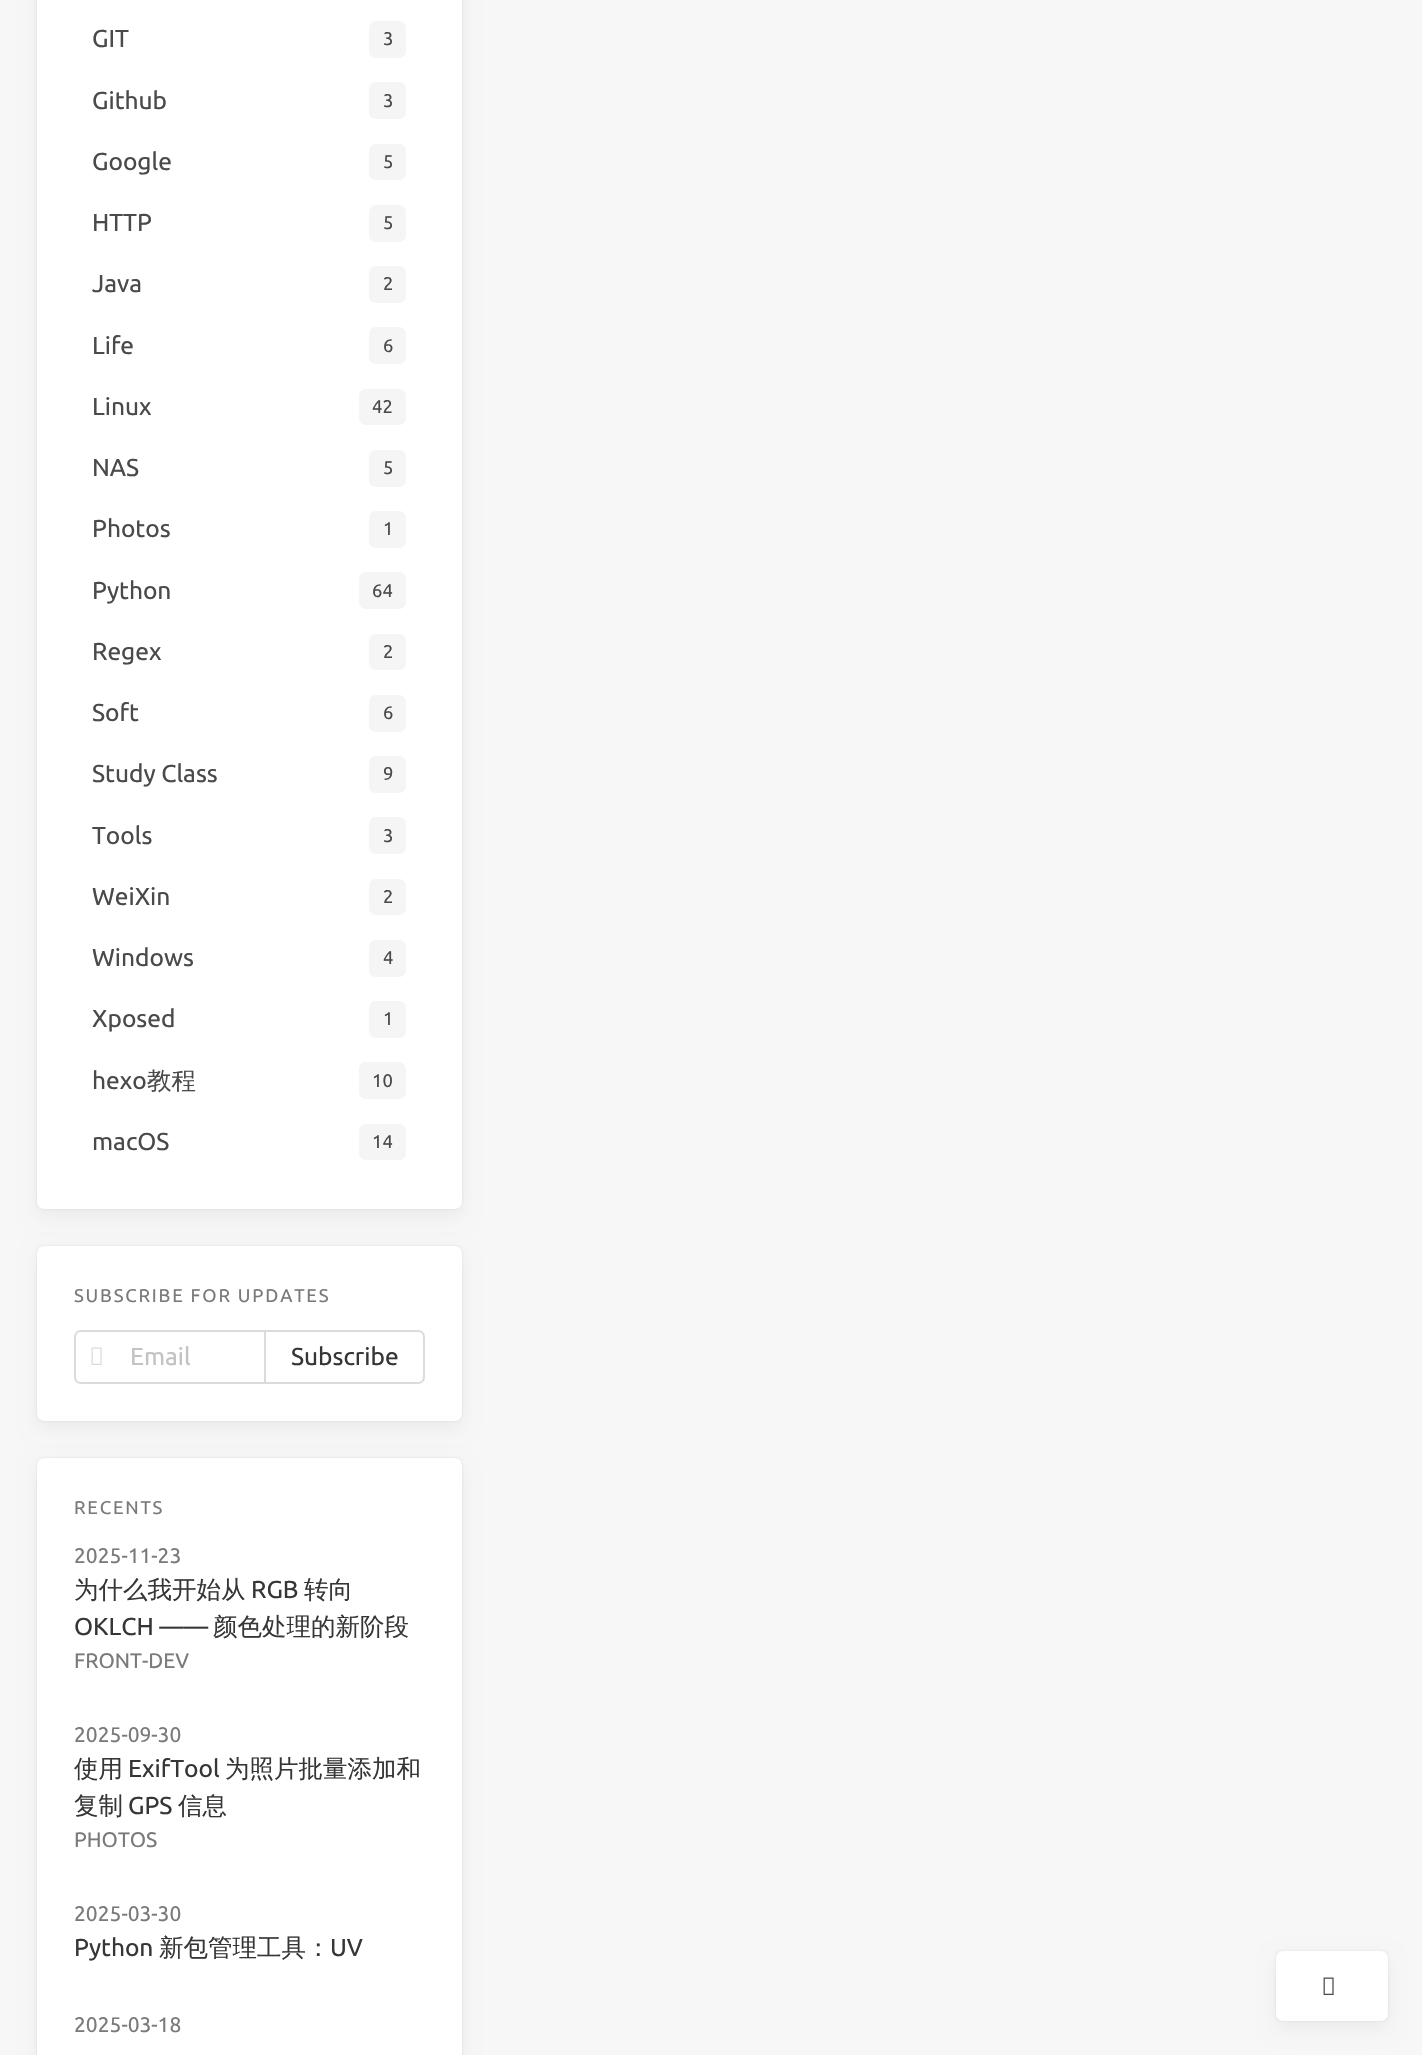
void draw(SkCanvas* canvas) {
  SkPaint paint;
  paint.setAntiAlias(true);
  auto face = [&](const char* family, int weight, float size, bool italic = false) {
    SkFontStyle style(weight, SkFontStyle::kNormal_Width,
      italic ? SkFontStyle::kItalic_Slant : SkFontStyle::kUpright_Slant);
    SkFont result(fontMgr->matchFamilyStyle(family, style), size);
    result.setSubpixel(true);
    return result;
  };
  auto writeSpaced = [&](const char* s, float x, float y, const SkFont& font, const SkPaint& ink, float letter, float word) {
    std::vector<SkGlyphID> glyphs(font.countText(s, strlen(s), SkTextEncoding::kUTF8));
    std::vector<float> xs(glyphs.size());
    font.textToGlyphs(s, strlen(s), SkTextEncoding::kUTF8, glyphs);
    font.getXPos(glyphs, xs, x);
    float extra = 0;
    for (size_t i = 0; i < glyphs.size(); i++) {
      xs[i] += extra;
      extra += letter + word * (glyphs[i] == font.unicharToGlyph(' '));
    }
    canvas->drawTextBlob(SkTextBlob::MakeFromPosHGlyphs(glyphs, xs, y, font), 0, 0, ink);
  };
  auto paste = [&](const char* path, float x, float y, float w, float h) {
    auto image = SkImages::DeferredFromEncodedData(SkData::MakeFromFileName(path));
    canvas->drawImageRect(image, SkRect::MakeXYWH(x, y, w, h), SkSamplingOptions());
  };
  auto shape = [&](const char* data, bool evenOdd = false) {
    SkPath result = *SkParsePath::FromSVGString(data);
    if (evenOdd) result.setFillType(SkPathFillType::kEvenOdd);
    return result;
  };
  canvas->clear(0xfff7f7f7);
  paint.setColor(0x1a000000);
  paint.setMaskFilter(SkMaskFilter::MakeBlur(kNormal_SkBlurStyle, 1));
  canvas->drawRoundRect(SkRect::MakeXYWH(37, -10, 425, 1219), 7, 7, paint);
  paint.setMaskFilter(nullptr);
  paint.setColor(0x0d000000);
  paint.setMaskFilter(SkMaskFilter::MakeBlur(kNormal_SkBlurStyle, 9));
  canvas->drawRoundRect(SkRect::MakeXYWH(37, -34, 425, 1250), 7, 7, paint);
  paint.setMaskFilter(nullptr);
  paint.setColor(0xffffffff);
  canvas->drawRoundRect(SkRect::MakeXYWH(37, -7, 425, 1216), 7, 7, paint);
  paint.setColor(0xfff5f5f5);
  canvas->drawRoundRect(SkRect::MakeXYWH(369, 21, 37, 37), 7, 7, paint);
  canvas->drawRoundRect(SkRect::MakeXYWH(369, 82, 37, 37), 7, 7, paint);
  canvas->drawRoundRect(SkRect::MakeXYWH(369, 144, 37, 36), 7, 7, paint);
  canvas->drawRoundRect(SkRect::MakeXYWH(369, 205, 37, 37), 7, 7, paint);
  canvas->drawRoundRect(SkRect::MakeXYWH(369, 266, 37, 37), 7, 7, paint);
  canvas->drawRoundRect(SkRect::MakeXYWH(369, 327, 37, 37), 7, 7, paint);
  canvas->drawRoundRect(SkRect::MakeXYWH(359, 389, 47, 36), 7, 7, paint);
  canvas->drawRoundRect(SkRect::MakeXYWH(369, 450, 37, 37), 7, 7, paint);
  canvas->drawRoundRect(SkRect::MakeXYWH(369, 511, 37, 37), 7, 7, paint);
  canvas->drawRoundRect(SkRect::MakeXYWH(359, 572, 47, 37), 7, 7, paint);
  canvas->drawRoundRect(SkRect::MakeXYWH(369, 634, 37, 36), 7, 7, paint);
  canvas->drawRoundRect(SkRect::MakeXYWH(369, 695, 37, 37), 7, 7, paint);
  canvas->drawRoundRect(SkRect::MakeXYWH(369, 756, 37, 37), 7, 7, paint);
  canvas->drawRoundRect(SkRect::MakeXYWH(369, 817, 37, 37), 7, 7, paint);
  canvas->drawRoundRect(SkRect::MakeXYWH(369, 879, 37, 36), 7, 7, paint);
  canvas->drawRoundRect(SkRect::MakeXYWH(369, 940, 37, 37), 7, 7, paint);
  canvas->drawRoundRect(SkRect::MakeXYWH(369, 1001, 37, 37), 7, 7, paint);
  canvas->drawRoundRect(SkRect::MakeXYWH(359, 1062, 47, 37), 7, 7, paint);
  canvas->drawRoundRect(SkRect::MakeXYWH(359, 1124, 47, 36), 7, 7, paint);
  paint.setColor(0x1a000000);
  paint.setMaskFilter(SkMaskFilter::MakeBlur(kNormal_SkBlurStyle, 1));
  canvas->drawRoundRect(SkRect::MakeXYWH(37, 1246, 425, 175), 7, 7, paint);
  paint.setMaskFilter(nullptr);
  paint.setColor(0x0d000000);
  paint.setMaskFilter(SkMaskFilter::MakeBlur(kNormal_SkBlurStyle, 9));
  canvas->drawRoundRect(SkRect::MakeXYWH(37, 1253, 425, 175), 7, 7, paint);
  paint.setMaskFilter(nullptr);
  paint.setColor(0xffffffff);
  canvas->drawRoundRect(SkRect::MakeXYWH(37, 1246, 425, 175), 7, 7, paint);
  paint.setStroke(true);
  paint.setStrokeWidth(2);
  paint.setColor(0xffdbdbdb);
  canvas->drawPath(shape("M81 1331H265V1383H81C77.5 1383 75 1380.5 75 1377V1337C75 1333.5 77.5 1331 81 1331Z"), paint);
  paste("img/1.png", 91, 1347, 11, 18);
  paint.setStroke(false);
  paint.setColor(0xffffffff);
  canvas->drawPath(shape("M265 1331H418C421.5 1331 424 1333.5 424 1337V1377C424 1380.5 421.5 1383 418 1383H265Z"), paint);
  paint.setStroke(true);
  paint.setColor(0xffdbdbdb);
  canvas->drawPath(shape("M265 1331H418C421.5 1331 424 1333.5 424 1337V1377C424 1380.5 421.5 1383 418 1383H265Z"), paint);
  paint.setStroke(false);
  paint.setColor(0x1a000000);
  paint.setMaskFilter(SkMaskFilter::MakeBlur(kNormal_SkBlurStyle, 1));
  canvas->drawRoundRect(SkRect::MakeXYWH(37, 1458, 425, 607), 7, 7, paint);
  paint.setMaskFilter(nullptr);
  paint.setColor(0x0d000000);
  paint.setMaskFilter(SkMaskFilter::MakeBlur(kNormal_SkBlurStyle, 9));
  canvas->drawRoundRect(SkRect::MakeXYWH(37, 1465, 425, 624), 7, 7, paint);
  paint.setMaskFilter(nullptr);
  paint.setColor(0xffffffff);
  canvas->drawRoundRect(SkRect::MakeXYWH(37, 1458, 425, 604), 7, 7, paint);
  paint.setColor(0x1a000000);
  paint.setMaskFilter(SkMaskFilter::MakeBlur(kNormal_SkBlurStyle, 1));
  canvas->drawRoundRect(SkRect::MakeXYWH(1276, 1951, 112, 70), 7, 7, paint);
  paint.setMaskFilter(nullptr);
  paint.setColor(0x0d000000);
  paint.setMaskFilter(SkMaskFilter::MakeBlur(kNormal_SkBlurStyle, 9));
  canvas->drawRoundRect(SkRect::MakeXYWH(1276, 1958, 112, 70), 7, 7, paint);
  paint.setMaskFilter(nullptr);
  paint.setColor(0xffffffff);
  canvas->drawRoundRect(SkRect::MakeXYWH(1276, 1951, 112, 70), 7, 7, paint);
  paste("img/2.png", 1323, 1977, 11, 18);
  auto f0 = face("Ubuntu", 400, 24.5f);
  paint.setColor(0xff4a4a4a);
  canvas->drawString("GIT", 92, 47, f0, paint);
  auto f1 = face("Ubuntu", 400, 18.4f);
  canvas->drawString("3", 383, 45, f1, paint);
  canvas->drawString("Github", 92, 109, f0, paint);
  canvas->drawString("3", 383, 107, f1, paint);
  canvas->drawString("Google", 92, 170, f0, paint);
  canvas->drawString("5", 383, 168, f1, paint);
  canvas->drawString("HTTP", 92, 231, f0, paint);
  canvas->drawString("5", 383, 229, f1, paint);
  canvas->drawString("Java", 92, 292, f0, paint);
  canvas->drawString("2", 383, 290, f1, paint);
  canvas->drawString("Life", 92, 354, f0, paint);
  canvas->drawString("6", 383, 352, f1, paint);
  canvas->drawString("Linux", 92, 415, f0, paint);
  canvas->drawString("42", 372, 413, f1, paint);
  canvas->drawString("NAS", 92, 476, f0, paint);
  canvas->drawString("5", 383, 474, f1, paint);
  canvas->drawString("Photos", 92, 537, f0, paint);
  canvas->drawString("1", 383, 535, f1, paint);
  canvas->drawString("Python", 92, 599, f0, paint);
  canvas->drawString("64", 372, 597, f1, paint);
  canvas->drawString("Regex", 92, 660, f0, paint);
  canvas->drawString("2", 383, 658, f1, paint);
  canvas->drawString("Soft", 92, 721, f0, paint);
  canvas->drawString("6", 383, 719, f1, paint);
  canvas->drawString("Study Class", 92, 782, f0, paint);
  canvas->drawString("9", 383, 780, f1, paint);
  canvas->drawString("Tools", 92, 844, f0, paint);
  canvas->drawString("3", 383, 842, f1, paint);
  canvas->drawString("WeiXin", 92, 905, f0, paint);
  canvas->drawString("2", 383, 903, f1, paint);
  canvas->drawString("Windows", 92, 966, f0, paint);
  canvas->drawString("4", 383, 964, f1, paint);
  canvas->drawString("Xposed", 92, 1027, f0, paint);
  canvas->drawString("1", 383, 1025, f1, paint);
  canvas->drawString("hexo", 92, 1089, f0, paint);
  auto f2 = face("WenQuanYi Zen Hei", 500, 24.5f);
  canvas->drawString("教程", 147, 1089, f2, paint);
  canvas->drawString("10", 372, 1087, f1, paint);
  canvas->drawString("macOS", 92, 1150, f0, paint);
  canvas->drawString("14", 372, 1148, f1, paint);
  paint.setColor(0xff7a7a7a);
  writeSpaced("SUBSCRIBE FOR UPDATES", 74, 1302, f1, paint, 1.8f, 0);
  paint.setColor(0xffc3c3c3);
  canvas->drawString("Email", 130, 1365, f0, paint);
  paint.setColor(0xff363636);
  canvas->drawString("Subscribe", 291, 1365, f0, paint);
  paint.setColor(0xff7a7a7a);
  writeSpaced("RECENTS", 74, 1514, f1, paint, 1.8f, 0);
  auto f3 = face("Ubuntu", 400, 21);
  canvas->drawString("2025-11-23", 74, 1563, f3, paint);
  paint.setColor(0xff363636);
  canvas->drawString("为什么我开始从", 74, 1598, f2, paint);
  canvas->drawString("RGB", 251, 1598, f0, paint);
  canvas->drawString("转向", 304, 1598, f2, paint);
  canvas->drawString("OKLCH ——", 74, 1635, f0, paint);
  canvas->drawString("颜色处理的新阶段", 213, 1635, f2, paint);
  paint.setColor(0xff7a7a7a);
  canvas->drawString("FRONT-DEV", 74, 1668, f3, paint);
  canvas->drawString("2025-09-30", 74, 1742, f3, paint);
  paint.setColor(0xff363636);
  canvas->drawString("使用", 74, 1777, f2, paint);
  canvas->drawString("ExifTool", 128, 1777, f0, paint);
  canvas->drawString("为照片批量添加和", 225, 1777, f2, paint);
  canvas->drawString("复制", 74, 1814, f2, paint);
  canvas->drawString("GPS", 128, 1814, f0, paint);
  canvas->drawString("信息", 178, 1814, f2, paint);
  paint.setColor(0xff7a7a7a);
  canvas->drawString("PHOTOS", 74, 1847, f3, paint);
  canvas->drawString("2025-03-30", 74, 1921, f3, paint);
  paint.setColor(0xff363636);
  canvas->drawString("Python", 74, 1956, f0, paint);
  canvas->drawString("新包管理工具：", 159, 1956, f2, paint);
  canvas->drawString("UV", 330, 1956, f0, paint);
  paint.setColor(0xff7a7a7a);
  canvas->drawString("2025-03-18", 74, 2032, f3, paint);
}
